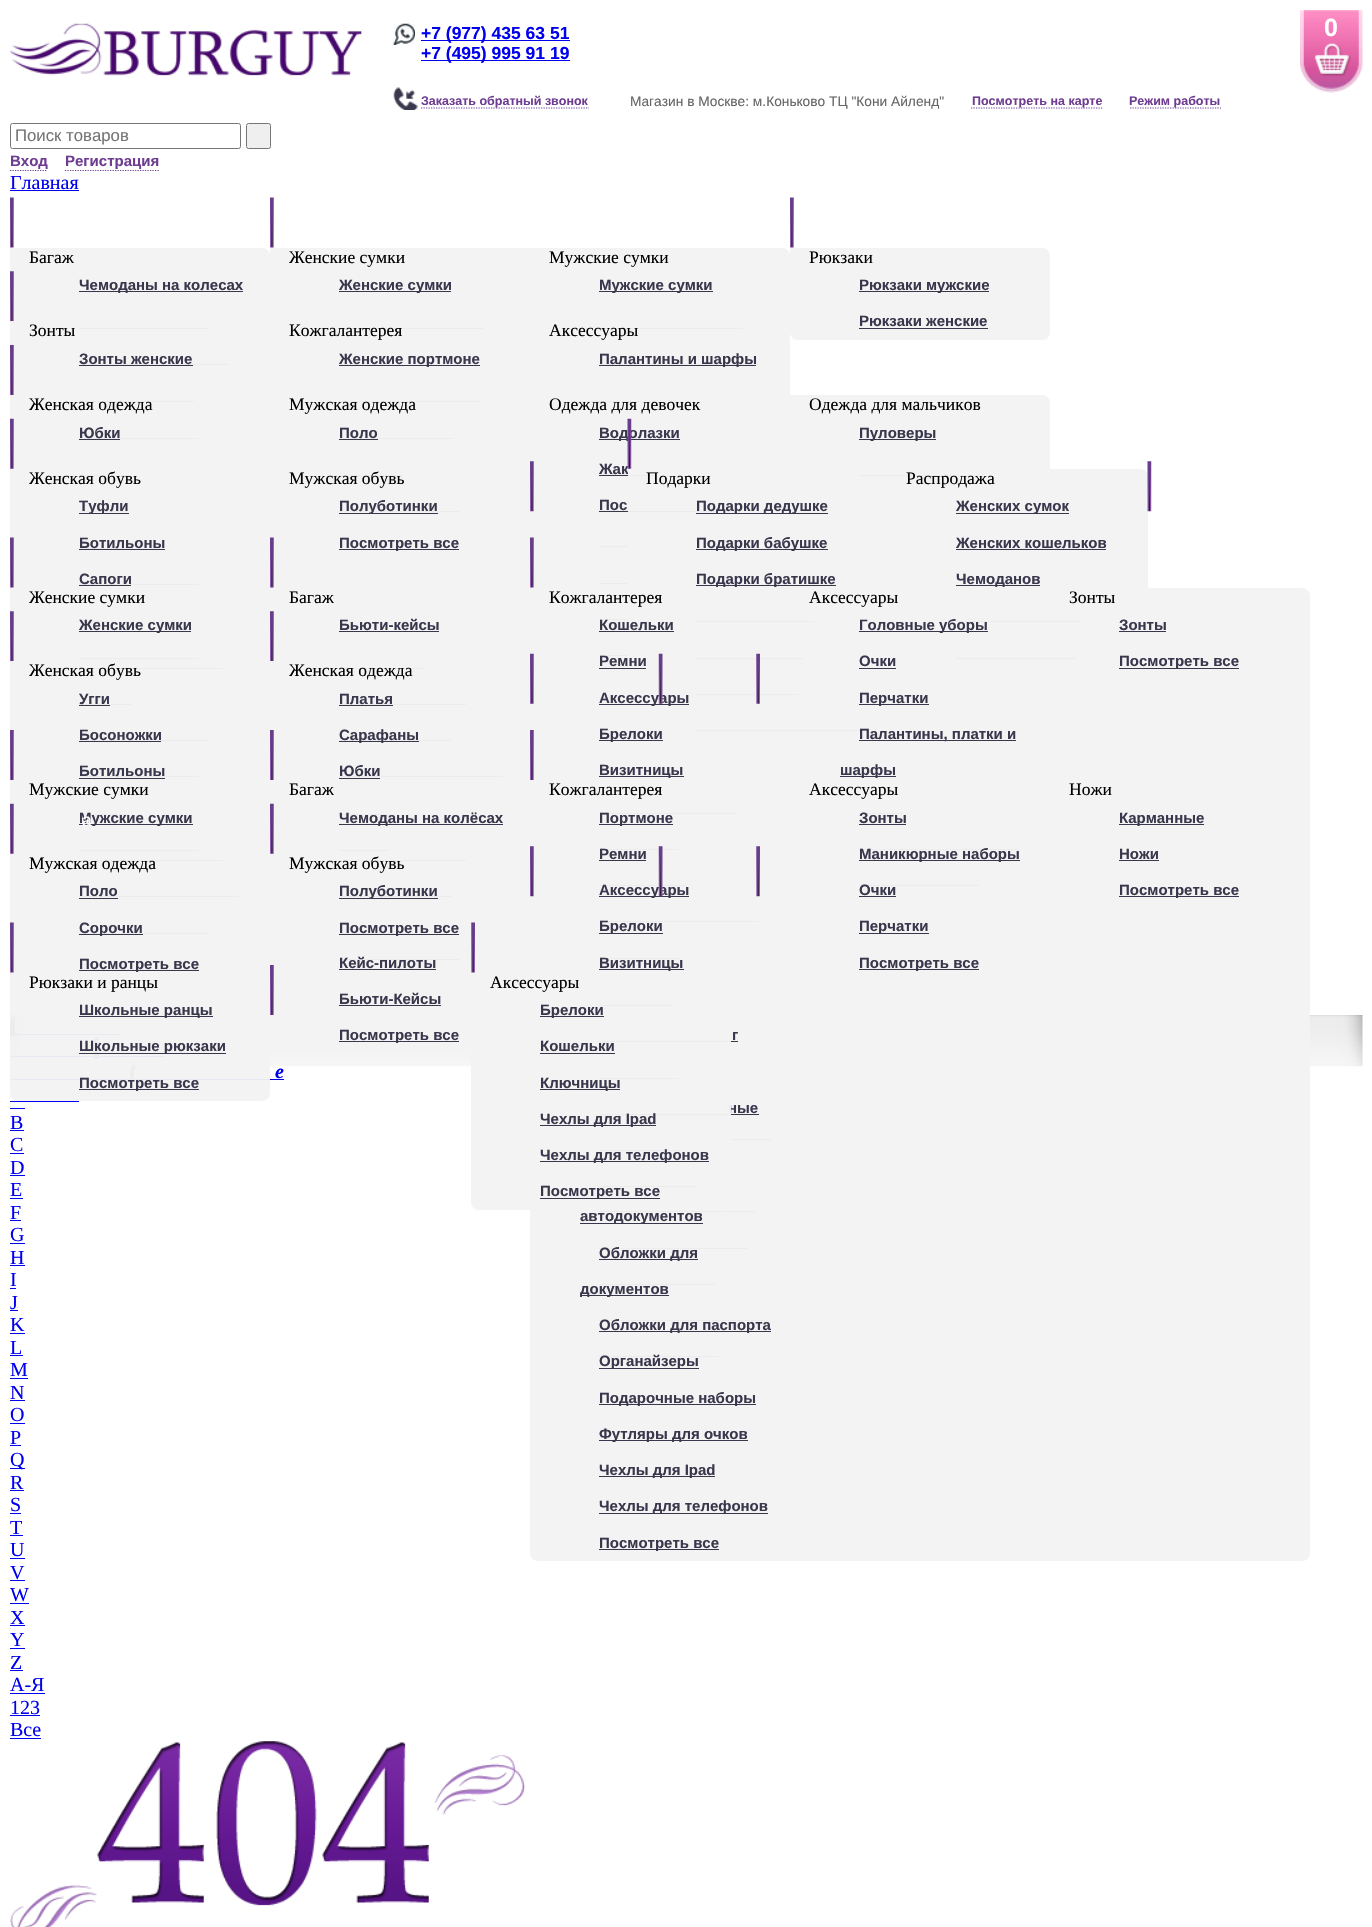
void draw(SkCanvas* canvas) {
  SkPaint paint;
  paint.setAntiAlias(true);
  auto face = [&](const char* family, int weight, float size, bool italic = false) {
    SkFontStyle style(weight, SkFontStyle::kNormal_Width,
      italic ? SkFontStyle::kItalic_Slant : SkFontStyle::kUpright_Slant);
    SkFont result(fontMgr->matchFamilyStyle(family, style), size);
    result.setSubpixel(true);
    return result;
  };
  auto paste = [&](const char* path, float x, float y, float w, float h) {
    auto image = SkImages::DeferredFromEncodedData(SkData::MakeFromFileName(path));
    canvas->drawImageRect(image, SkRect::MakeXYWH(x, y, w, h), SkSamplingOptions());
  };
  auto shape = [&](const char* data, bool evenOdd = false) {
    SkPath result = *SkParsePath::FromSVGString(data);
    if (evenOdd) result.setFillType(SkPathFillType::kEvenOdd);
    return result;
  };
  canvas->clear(0xffffffff);
  paste("img/1.png", 10, 23, 352, 53);
  paste("img/2.png", 393, 23, 22, 22);
  paint.setColor(0xff0000ee);
  canvas->drawRect(SkRect::MakeXYWH(421, 40, 149, 1), paint);
  canvas->drawRect(SkRect::MakeXYWH(421, 60, 149, 1), paint);
  paste("img/3.png", 393, 87, 25, 23);
  paint.setStroke(true);
  paint.setStrokeWidth(1.2f);
  paint.setColor(0xff6e3d91);
  paint.setPathEffect(SkDashPathEffect::Make({{1.25f, 1.25f}}, 0));
  canvas->drawPath(shape("M421 108H589"), paint);
  paint.setPathEffect(nullptr);
  paint.setPathEffect(SkDashPathEffect::Make({{1.25f, 1.25f}}, 0));
  canvas->drawPath(shape("M971 108H1102.5"), paint);
  paint.setPathEffect(nullptr);
  paint.setPathEffect(SkDashPathEffect::Make({{1.25f, 1.25f}}, 0));
  canvas->drawPath(shape("M1130 108H1221"), paint);
  paint.setPathEffect(nullptr);
  paste("img/4.png", 1300, 10, 63, 83);
  paint.setStrokeWidth(1);
  paint.setColor(0xff767676);
  canvas->drawRoundRect(SkRect::MakeXYWH(10.5f, 123.5f, 230, 25), 2, 2, paint);
  paint.setStroke(false);
  paint.setColor(0xffefefef);
  canvas->drawRoundRect(SkRect::MakeXYWH(246.5f, 123.5f, 24, 25), 2, 2, paint);
  paint.setStroke(true);
  paint.setColor(0xff767676);
  canvas->drawRoundRect(SkRect::MakeXYWH(246.5f, 123.5f, 24, 25), 2, 2, paint);
  paint.setStrokeWidth(1.2f);
  paint.setColor(0xff6e3d91);
  paint.setPathEffect(SkDashPathEffect::Make({{1.25f, 1.25f}}, 0));
  canvas->drawPath(shape("M10 170.5H47.5"), paint);
  paint.setPathEffect(nullptr);
  paint.setPathEffect(SkDashPathEffect::Make({{1.25f, 1.25f}}, 0));
  canvas->drawPath(shape("M65 170.5H160"), paint);
  paint.setPathEffect(nullptr);
  paint.setStroke(false);
  paint.setColor(0xff0000ee);
  canvas->drawRect(SkRect::MakeXYWH(10, 190, 69, 1), paint);
  paste("img/5.png", 10, 197, 4, 51);
  canvas->drawRect(SkRect::MakeXYWH(10, 530, 108, 1), paint);
  canvas->drawRect(SkRect::MakeXYWH(10, 723, 106, 1), paint);
  paint.setColor(0xf5f2f2f2);
  canvas->drawPath(shape("M10 248H262C266.5 248 270 251.5 270 256V731C270 735.5 266.5 739 262 739H18C13.5 739 10 735.5 10 731Z"), paint);
  {
    const struct { float x, y, w, h; SkColor color; } items[] = {
      {79, 291, 164, 1, 0xff39374c},
      {79, 328, 129, 1, 0xff39374c},
      {79, 364, 150, 1, 0xff39374c},
      {60, 400, 64, 1, 0xff39374c},
      {79, 436, 121, 1, 0xff39374c},
      {60, 473, 115, 1, 0xff39374c},
      {79, 509, 109, 1, 0xff39374c},
      {79, 545, 97, 1, 0xff39374c},
      {79, 581, 86, 1, 0xff39374c},
      {79, 618, 169, 1, 0xff39374c},
      {79, 654, 157, 1, 0xff39374c},
      {79, 690, 91, 1, 0xff39374c},
      {79, 726, 120, 1, 0xff39374c},
    };
    for (auto [x, y, w, h, color] : items) {
      paint.setColor(color);
      canvas->drawRect(SkRect::MakeXYWH(x, y, w, h), paint);
    }
  }
  paste("img/6.png", 270, 197, 4, 51);
  paint.setColor(0xfff3f3f3);
  canvas->drawPath(shape("M270 248H782C786.5 248 790 251.5 790 256V441C790 445.5 786.5 449 782 449H278C273.5 449 270 445.5 270 441Z"), paint);
  {
    const struct { float x, y, w, h; SkColor color; } items[] = {
      {339, 291, 112, 1, 0xff39374c},
      {339, 328, 144, 1, 0xff39374c},
      {339, 364, 52, 1, 0xff39374c},
      {339, 400, 130, 1, 0xff39374c},
      {339, 436, 120, 1, 0xff39374c},
      {599, 291, 114, 1, 0xff39374c},
      {599, 328, 144, 1, 0xff39374c},
      {599, 364, 160, 1, 0xff39374c},
      {599, 400, 130, 1, 0xff39374c},
      {599, 436, 120, 1, 0xff39374c},
    };
    for (auto [x, y, w, h, color] : items) {
      paint.setColor(color);
      canvas->drawRect(SkRect::MakeXYWH(x, y, w, h), paint);
    }
  }
  paste("img/5.png", 790, 197, 4, 51);
  paint.setColor(0xfff3f3f3);
  canvas->drawPath(shape("M790 248H1042C1046.5 248 1050 251.5 1050 256V332C1050 336.5 1046.5 340 1042 340H798C793.5 340 790 336.5 790 332Z"), paint);
  paint.setColor(0xff39374c);
  canvas->drawRect(SkRect::MakeXYWH(859, 291, 130, 1), paint);
  canvas->drawRect(SkRect::MakeXYWH(859, 328, 129, 1), paint);
  paste("img/7.png", 10, 271, 4, 51);
  paint.setColor(0xf5f2f2f2);
  canvas->drawPath(shape("M10 321H782C786.5 321 790 324.5 790 329V732C790 736.5 786.5 740 782 740H18C13.5 740 10 736.5 10 732Z"), paint);
  {
    const struct { float x, y, w, h; SkColor color; } items[] = {
      {79, 365, 114, 1, 0xff39374c},
      {79, 401, 115, 1, 0xff39374c},
      {79, 438, 120, 1, 0xff39374c},
      {339, 365, 141, 1, 0xff39374c},
      {339, 401, 141, 1, 0xff39374c},
      {339, 438, 115, 1, 0xff39374c},
      {339, 474, 116, 1, 0xff39374c},
      {339, 510, 99, 1, 0xff39374c},
      {320, 546, 123, 1, 0xff39374c},
      {339, 583, 172, 1, 0xff39374c},
      {339, 619, 85, 1, 0xff39374c},
      {339, 655, 135, 1, 0xff39374c},
      {339, 691, 137, 1, 0xff39374c},
      {339, 728, 120, 1, 0xff39374c},
      {599, 365, 157, 1, 0xff39374c},
      {580, 401, 61, 1, 0xff39374c},
      {599, 438, 37, 1, 0xff39374c},
      {599, 474, 40, 1, 0xff39374c},
      {599, 510, 44, 1, 0xff39374c},
      {599, 546, 105, 1, 0xff39374c},
      {599, 583, 86, 1, 0xff39374c},
      {599, 619, 109, 1, 0xff39374c},
      {599, 655, 120, 1, 0xff39374c},
    };
    for (auto [x, y, w, h, color] : items) {
      paint.setColor(color);
      canvas->drawRect(SkRect::MakeXYWH(x, y, w, h), paint);
    }
  }
  paste("img/8.png", 10, 345, 4, 50);
  paint.setColor(0xf5f2f2f2);
  canvas->drawPath(shape("M10 395H1042C1046.5 395 1050 398.5 1050 403V588C1050 592.5 1046.5 596 1042 596H18C13.5 596 10 592.5 10 588Z"), paint);
  {
    const struct { float x, y, w, h; SkColor color; } items[] = {
      {79, 439, 41, 1, 0xff39374c},
      {79, 475, 52, 1, 0xff39374c},
      {79, 511, 50, 1, 0xff39374c},
      {79, 548, 55, 1, 0xff39374c},
      {79, 584, 120, 1, 0xff39374c},
      {339, 439, 39, 1, 0xff39374c},
      {339, 475, 64, 1, 0xff39374c},
      {339, 511, 120, 1, 0xff39374c},
      {599, 439, 81, 1, 0xff39374c},
      {599, 475, 57, 1, 0xff39374c},
      {599, 511, 120, 1, 0xff39374c},
      {859, 439, 77, 1, 0xff39374c},
      {859, 475, 120, 1, 0xff39374c},
    };
    for (auto [x, y, w, h, color] : items) {
      paint.setColor(color);
      canvas->drawRect(SkRect::MakeXYWH(x, y, w, h), paint);
    }
  }
  paste("img/9.png", 10, 418, 4, 51);
  paint.setColor(0xf5f2f2f2);
  canvas->drawPath(shape("M10 469H522C526.5 469 530 472.5 530 477V662C530 666.5 526.5 670 522 670H18C13.5 670 10 666.5 10 662Z"), paint);
  {
    const struct { float x, y, w, h; SkColor color; } items[] = {
      {79, 513, 50, 1, 0xff39374c},
      {79, 549, 86, 1, 0xff39374c},
      {79, 585, 52, 1, 0xff39374c},
      {79, 621, 31, 1, 0xff39374c},
      {79, 658, 120, 1, 0xff39374c},
      {339, 513, 99, 1, 0xff39374c},
      {339, 549, 120, 1, 0xff39374c},
    };
    for (auto [x, y, w, h, color] : items) {
      paint.setColor(color);
      canvas->drawRect(SkRect::MakeXYWH(x, y, w, h), paint);
    }
  }
  paste("img/10.png", 530, 461, 4, 51);
  paste("img/13.png", 10, 537, 4, 51);
  paint.setColor(0xf5f2f2f2);
  canvas->drawPath(shape("M10 588H262C266.5 588 270 591.5 270 596V781C270 785.5 266.5 789 262 789H18C13.5 789 10 785.5 10 781Z"), paint);
  {
    const struct { float x, y, w, h; SkColor color; } items[] = {
      {79, 631, 112, 1, 0xff39374c},
      {79, 668, 144, 1, 0xff39374c},
      {79, 704, 52, 1, 0xff39374c},
      {79, 740, 130, 1, 0xff39374c},
      {79, 776, 120, 1, 0xff39374c},
    };
    for (auto [x, y, w, h, color] : items) {
      paint.setColor(color);
      canvas->drawRect(SkRect::MakeXYWH(x, y, w, h), paint);
    }
  }
  paste("img/14.png", 270, 537, 4, 51);
  paint.setColor(0xf5f2f2f2);
  canvas->drawPath(shape("M270 588H522C526.5 588 530 591.5 530 596V890C530 894.5 526.5 898 522 898H278C273.5 898 270 894.5 270 890Z"), paint);
  {
    const struct { float x, y, w, h; SkColor color; } items[] = {
      {339, 631, 100, 1, 0xff39374c},
      {339, 668, 86, 1, 0xff39374c},
      {339, 704, 127, 1, 0xff39374c},
      {339, 740, 112, 1, 0xff39374c},
      {339, 776, 164, 1, 0xff39374c},
      {339, 813, 122, 1, 0xff39374c},
      {320, 849, 83, 1, 0xff39374c},
      {339, 885, 120, 1, 0xff39374c},
    };
    for (auto [x, y, w, h, color] : items) {
      paint.setColor(color);
      canvas->drawRect(SkRect::MakeXYWH(x, y, w, h), paint);
    }
  }
  paste("img/14.png", 530, 537, 4, 51);
  paste("img/16.png", 10, 611, 4, 51);
  paint.setColor(0xf5f2f2f2);
  canvas->drawPath(shape("M10 661H262C266.5 661 270 664.5 270 669V855C270 859.5 266.5 863 262 863H18C13.5 863 10 859.5 10 855Z"), paint);
  {
    const struct { float x, y, w, h; SkColor color; } items[] = {
      {79, 705, 31, 1, 0xff39374c},
      {79, 741, 82, 1, 0xff39374c},
      {79, 778, 86, 1, 0xff39374c},
      {79, 814, 50, 1, 0xff39374c},
      {79, 850, 120, 1, 0xff39374c},
    };
    for (auto [x, y, w, h, color] : items) {
      paint.setColor(color);
      canvas->drawRect(SkRect::MakeXYWH(x, y, w, h), paint);
    }
  }
  paste("img/17.png", 270, 611, 4, 51);
  paint.setColor(0xf5f2f2f2);
  canvas->drawPath(shape("M270 661H522C526.5 661 530 664.5 530 669V963C530 967.5 526.5 971 522 971H278C273.5 971 270 967.5 270 963Z"), paint);
  {
    const struct { float x, y, w, h; SkColor color; } items[] = {
      {339, 705, 54, 1, 0xff39374c},
      {339, 741, 80, 1, 0xff39374c},
      {339, 778, 41, 1, 0xff39374c},
      {339, 814, 52, 1, 0xff39374c},
      {339, 850, 50, 1, 0xff39374c},
      {339, 886, 74, 1, 0xff39374c},
      {339, 923, 52, 1, 0xff39374c},
      {339, 959, 120, 1, 0xff39374c},
    };
    for (auto [x, y, w, h, color] : items) {
      paint.setColor(color);
      canvas->drawRect(SkRect::MakeXYWH(x, y, w, h), paint);
    }
  }
  paste("img/8.png", 10, 730, 4, 50);
  paint.setColor(0xff0000ee);
  canvas->drawRect(SkRect::MakeXYWH(10, 915, 85, 1), paint);
  paint.setColor(0xf5f2f2f2);
  canvas->drawPath(shape("M10 780H262C266.5 780 270 783.5 270 788V973C270 977.5 266.5 981 262 981H18C13.5 981 10 977.5 10 973Z"), paint);
  {
    const struct { float x, y, w, h; SkColor color; } items[] = {
      {79, 824, 114, 1, 0xff39374c},
      {79, 860, 144, 1, 0xff39374c},
      {79, 896, 160, 1, 0xff39374c},
      {79, 933, 130, 1, 0xff39374c},
      {79, 969, 120, 1, 0xff39374c},
    };
    for (auto [x, y, w, h, color] : items) {
      paint.setColor(color);
      canvas->drawRect(SkRect::MakeXYWH(x, y, w, h), paint);
    }
  }
  paste("img/20.png", 270, 730, 4, 50);
  paste("img/28.png", 10, 1015, 1353, 52);
  paint.setColor(0xf5f2f2f2);
  canvas->drawPath(shape("M270 780H522C526.5 780 530 783.5 530 788V1046C530 1050.5 526.5 1054 522 1054H278C273.5 1054 270 1050.5 270 1046Z"), paint);
  {
    const struct { float x, y, w, h; SkColor color; } items[] = {
      {339, 824, 164, 1, 0xff39374c},
      {339, 860, 127, 1, 0xff39374c},
      {339, 896, 112, 1, 0xff39374c},
      {339, 933, 86, 1, 0xff39374c},
      {339, 969, 97, 1, 0xff39374c},
      {339, 1005, 102, 1, 0xff39374c},
      {339, 1041, 120, 1, 0xff39374c},
    };
    for (auto [x, y, w, h, color] : items) {
      paint.setColor(color);
      canvas->drawRect(SkRect::MakeXYWH(x, y, w, h), paint);
    }
  }
  paste("img/22.png", 10, 803, 4, 51);
  paint.setColor(0xf5f2f2f2);
  canvas->drawPath(shape("M10 854H262C266.5 854 270 857.5 270 862V975C270 979.5 266.5 983 262 983H18C13.5 983 10 979.5 10 975Z"), paint);
  {
    const struct { float x, y, w, h; SkColor color; } items[] = {
      {79, 898, 39, 1, 0xff39374c},
      {79, 934, 64, 1, 0xff39374c},
      {79, 970, 120, 1, 0xff39374c},
    };
    for (auto [x, y, w, h, color] : items) {
      paint.setColor(color);
      canvas->drawRect(SkRect::MakeXYWH(x, y, w, h), paint);
    }
  }
  paste("img/23.png", 270, 803, 4, 51);
  paint.setColor(0xf5f2f2f2);
  canvas->drawPath(shape("M270 854H522C526.5 854 530 857.5 530 862V938C530 942.5 526.5 946 522 946H278C273.5 946 270 942.5 270 938Z"), paint);
  paint.setColor(0xff39374c);
  canvas->drawRect(SkRect::MakeXYWH(339, 898, 99, 1), paint);
  canvas->drawRect(SkRect::MakeXYWH(339, 934, 120, 1), paint);
  paste("img/13.png", 10, 922, 4, 51);
  paste("img/29.png", 10, 1015, 5, 22);
  paint.setColor(0xff0000ee);
  canvas->drawRect(SkRect::MakeXYWH(15, 1034, 106, 1), paint);
  canvas->drawRect(SkRect::MakeXYWH(10, 1056, 84, 1), paint);
  paste("img/30.png", 93, 1037, 6, 22);
  canvas->drawRect(SkRect::MakeXYWH(99, 1056, 66, 1), paint);
  paste("img/31.png", 130, 1063, 5, 19);
  canvas->drawRect(SkRect::MakeXYWH(135, 1079, 149, 1), paint);
  canvas->drawRect(SkRect::MakeXYWH(10, 1079, 120, 1), paint);
  paint.setColor(0xf5f2f2f2);
  canvas->drawPath(shape("M10 973H262C266.5 973 270 976.5 270 981V1093C270 1097.5 266.5 1101 262 1101H18C13.5 1101 10 1097.5 10 1093Z"), paint);
  {
    const struct { float x, y, w, h; SkColor color; } items[] = {
      {79, 1016, 134, 1, 0xff39374c},
      {79, 1053, 147, 1, 0xff39374c},
      {79, 1089, 120, 1, 0xff39374c},
    };
    for (auto [x, y, w, h, color] : items) {
      paint.setColor(color);
      canvas->drawRect(SkRect::MakeXYWH(x, y, w, h), paint);
    }
  }
  paste("img/26.png", 270, 965, 4, 50);
  paste("img/27.png", 471, 922, 4, 51);
  {
    const struct { float x, y, w, h; SkColor color; } items[] = {
      {10, 1101, 69, 1, 0xff0000ee},
      {10, 1108, 15, 1, 0xff0000ee},
      {10, 1130, 14, 1, 0xff0000ee},
      {10, 1153, 14, 1, 0xff0000ee},
      {10, 1175, 15, 1, 0xff0000ee},
      {10, 1198, 13, 1, 0xff0000ee},
      {10, 1220, 11, 1, 0xff0000ee},
      {10, 1243, 15, 1, 0xff0000ee},
      {10, 1265, 15, 1, 0xff0000ee},
      {10, 1288, 6, 1, 0xff0000ee},
      {10, 1310, 8, 1, 0xff0000ee},
      {10, 1333, 15, 1, 0xff0000ee},
      {10, 1355, 13, 1, 0xff0000ee},
      {10, 1378, 18, 1, 0xff0000ee},
      {10, 1400, 15, 1, 0xff0000ee},
      {10, 1423, 15, 1, 0xff0000ee},
      {10, 1445, 11, 1, 0xff0000ee},
      {10, 1468, 15, 1, 0xff0000ee},
      {10, 1490, 14, 1, 0xff0000ee},
      {10, 1513, 11, 1, 0xff0000ee},
      {10, 1535, 13, 1, 0xff0000ee},
      {10, 1558, 15, 1, 0xff0000ee},
      {10, 1580, 15, 1, 0xff0000ee},
      {10, 1603, 19, 1, 0xff0000ee},
      {10, 1625, 15, 1, 0xff0000ee},
      {10, 1648, 15, 1, 0xff0000ee},
      {10, 1670, 13, 1, 0xff0000ee},
      {10, 1693, 35, 1, 0xff0000ee},
      {10, 1715, 30, 1, 0xff0000ee},
      {10, 1738, 31, 1, 0xff0000ee},
    };
    for (auto [x, y, w, h, color] : items) {
      paint.setColor(color);
      canvas->drawRect(SkRect::MakeXYWH(x, y, w, h), paint);
    }
  }
  paste("img/32.png", 10, 1741, 516, 186);
  auto f0 = face("Liberation Sans", 700, 17.5f);
  canvas->drawString("+7 (977) 435 63 51", 421, 39, f0, paint);
  canvas->drawString("+7 (495) 995 91 19", 421, 59, f0, paint);
  auto f1 = face("Liberation Sans", 700, 12.5f);
  paint.setColor(0xff6e3d91);
  canvas->drawString("Заказать обратный звонок", 421, 105, f1, paint);
  auto f2 = face("Liberation Sans", 400, 13.75f);
  paint.setColor(0xff666666);
  canvas->drawString("Магазин в Москве: м.Коньково ТЦ \"Кони Айленд\"", 630, 106, f2, paint);
  paint.setColor(0xff6e3d91);
  canvas->drawString("Посмотреть на карте", 972, 105, f1, paint);
  canvas->drawString("Режим работы", 1129, 105, f1, paint);
  auto f3 = face("Liberation Sans", 700, 25);
  paint.setColor(0xffffffff);
  canvas->drawString("0", 1324, 36, f3, paint);
  auto f4 = face("Liberation Sans", 400, 16.75f);
  paint.setColor(0xff757575);
  canvas->drawString("Поиск товаров", 15, 141, f4, paint);
  auto f5 = face("Liberation Sans", 700, 15);
  paint.setColor(0xff6e3d91);
  canvas->drawString("Вход", 10, 166, f5, paint);
  canvas->drawString("Регистрация", 65, 166, f5, paint);
  auto f6 = face("Liberation Serif", 400, 20);
  paint.setColor(0xff0000ee);
  canvas->drawString("Главная", 10, 189, f6, paint);
  auto f7 = face("Liberation Serif", 400, 17.5f);
  paint.setColor(0xff000000);
  canvas->drawString("Багаж", 29, 263, f7, paint);
  paint.setColor(0xff39374c);
  canvas->drawString("Чемоданы на колесах", 79, 290, f5, paint);
  paint.setColor(0xff000000);
  canvas->drawString("Женские сумки", 289, 263, f7, paint);
  paint.setColor(0xff39374c);
  canvas->drawString("Женские сумки", 339, 290, f5, paint);
  paint.setColor(0xff000000);
  canvas->drawString("Мужские сумки", 549, 263, f7, paint);
  paint.setColor(0xff39374c);
  canvas->drawString("Мужские сумки", 599, 290, f5, paint);
  paint.setColor(0xff000000);
  canvas->drawString("Рюкзаки", 809, 263, f7, paint);
  paint.setColor(0xff39374c);
  canvas->drawString("Рюкзаки мужские", 859, 290, f5, paint);
  canvas->drawString("Рюкзаки женские", 859, 326, f5, paint);
  paint.setColor(0xff000000);
  canvas->drawString("Зонты", 29, 336, f7, paint);
  paint.setColor(0xff39374c);
  canvas->drawString("Зонты женские", 79, 364, f5, paint);
  paint.setColor(0xff000000);
  canvas->drawString("Кожгалантерея", 289, 336, f7, paint);
  paint.setColor(0xff39374c);
  canvas->drawString("Женские портмоне", 339, 364, f5, paint);
  paint.setColor(0xff000000);
  canvas->drawString("Аксессуары", 549, 336, f7, paint);
  paint.setColor(0xff39374c);
  canvas->drawString("Палантины и шарфы", 599, 364, f5, paint);
  paint.setColor(0xff000000);
  canvas->drawString("Женская одежда", 29, 410, f7, paint);
  paint.setColor(0xff39374c);
  canvas->drawString("Юбки", 79, 438, f5, paint);
  paint.setColor(0xff000000);
  canvas->drawString("Мужская одежда", 289, 410, f7, paint);
  paint.setColor(0xff39374c);
  canvas->drawString("Поло", 339, 438, f5, paint);
  paint.setColor(0xff000000);
  canvas->drawString("Одежда для девочек", 549, 410, f7, paint);
  paint.setColor(0xff39374c);
  {
    const struct { const char* s; float x, y; } items[] = {
      {"Водолазки", 599, 438},
      {"Жак", 599, 474},
      {"Пос", 599, 510},
    };
    for (auto [s, x, y] : items) {
      canvas->drawString(s, x, y, f5, paint);
    }
  }
  paint.setColor(0xff000000);
  canvas->drawString("Одежда для мальчиков", 809, 410, f7, paint);
  paint.setColor(0xff39374c);
  canvas->drawString("Пуловеры", 859, 438, f5, paint);
  paint.setColor(0xff000000);
  canvas->drawString("Женская обувь", 29, 484, f7, paint);
  paint.setColor(0xff39374c);
  {
    const struct { const char* s; float x, y; } items[] = {
      {"Туфли", 79, 511},
      {"Ботильоны", 79, 548},
      {"Сапоги", 79, 584},
    };
    for (auto [s, x, y] : items) {
      canvas->drawString(s, x, y, f5, paint);
    }
  }
  paint.setColor(0xff000000);
  canvas->drawString("Мужская обувь", 289, 484, f7, paint);
  paint.setColor(0xff39374c);
  canvas->drawString("Полуботинки", 339, 511, f5, paint);
  canvas->drawString("Посмотреть все", 339, 548, f5, paint);
  paste("img/11.png", 627, 418, 5, 51);
  paint.setColor(0xf5f2f2f2);
  canvas->drawPath(shape("M628 469H1140C1144.5 469 1148 472.5 1148 477V735C1148 739.5 1144.5 743 1140 743H636C631.5 743 628 739.5 628 735Z"), paint);
  paint.setColor(0xff000000);
  canvas->drawString("Подарки", 646, 484, f7, paint);
  paint.setColor(0xff39374c);
  canvas->drawRect(SkRect::MakeXYWH(696, 513, 132, 1), paint);
  canvas->drawString("Подарки дедушке", 696, 511, f5, paint);
  canvas->drawRect(SkRect::MakeXYWH(696, 549, 132, 1), paint);
  canvas->drawString("Подарки бабушке", 696, 548, f5, paint);
  canvas->drawRect(SkRect::MakeXYWH(696, 585, 140, 1), paint);
  canvas->drawString("Подарки братишке", 696, 584, f5, paint);
  {
    const struct { float x, y, w, h; SkColor color; } items[] = {
      {696, 621, 118, 1, 0xff39374c},
      {696, 658, 107, 1, 0xff39374c},
      {696, 694, 103, 1, 0xff39374c},
      {696, 730, 174, 1, 0xff39374c},
    };
    for (auto [x, y, w, h, color] : items) {
      paint.setColor(color);
      canvas->drawRect(SkRect::MakeXYWH(x, y, w, h), paint);
    }
  }
  paint.setColor(0xff000000);
  canvas->drawString("Распродажа", 906, 484, f7, paint);
  paint.setColor(0xff39374c);
  canvas->drawRect(SkRect::MakeXYWH(956, 513, 113, 1), paint);
  canvas->drawString("Женских сумок", 956, 511, f5, paint);
  canvas->drawString("Женских кошельков", 956, 548, f5, paint);
  canvas->drawRect(SkRect::MakeXYWH(956, 549, 150, 1), paint);
  canvas->drawRect(SkRect::MakeXYWH(956, 585, 84, 1), paint);
  canvas->drawString("Чемоданов", 956, 584, f5, paint);
  canvas->drawRect(SkRect::MakeXYWH(956, 621, 124, 1), paint);
  canvas->drawRect(SkRect::MakeXYWH(956, 658, 120, 1), paint);
  paste("img/12.png", 1147, 461, 5, 51);
  paint.setColor(0xff000000);
  canvas->drawString("Женские сумки", 29, 603, f7, paint);
  paint.setColor(0xff39374c);
  canvas->drawString("Женские сумки", 79, 630, f5, paint);
  paint.setColor(0xff000000);
  canvas->drawString("Багаж", 289, 603, f7, paint);
  paint.setColor(0xff39374c);
  canvas->drawString("Бьюти-кейсы", 339, 630, f5, paint);
  paint.setColor(0xf5f2f2f2);
  canvas->drawPath(shape("M530 588H1302C1306.5 588 1310 591.5 1310 596V1361C1310 1365.5 1306.5 1369 1302 1369H538C533.5 1369 530 1365.5 530 1361Z"), paint);
  paste("img/15.png", 530, 653, 4, 51);
  paint.setColor(0xff000000);
  canvas->drawString("Кожгалантерея", 549, 603, f7, paint);
  paint.setColor(0xff39374c);
  canvas->drawString("Кошельки", 599, 630, f5, paint);
  canvas->drawRect(SkRect::MakeXYWH(599, 631, 75, 1), paint);
  canvas->drawString("Ремни", 599, 666, f5, paint);
  canvas->drawRect(SkRect::MakeXYWH(599, 668, 47, 1), paint);
  canvas->drawRect(SkRect::MakeXYWH(599, 704, 90, 1), paint);
  canvas->drawString("Аксессуары", 599, 703, f5, paint);
  canvas->drawRect(SkRect::MakeXYWH(599, 740, 64, 1), paint);
  canvas->drawString("Брелоки", 599, 739, f5, paint);
  canvas->drawRect(SkRect::MakeXYWH(599, 776, 85, 1), paint);
  canvas->drawString("Визитницы", 599, 775, f5, paint);
  {
    const struct { float x, y, w, h; SkColor color; } items[] = {
      {599, 813, 139, 1, 0xff39374c},
      {599, 849, 80, 1, 0xff39374c},
      {599, 885, 87, 1, 0xff39374c},
      {599, 921, 160, 1, 0xff39374c},
      {599, 958, 82, 1, 0xff39374c},
      {599, 994, 99, 1, 0xff39374c},
      {580, 1030, 123, 1, 0xff39374c},
      {599, 1066, 99, 1, 0xff39374c},
      {580, 1103, 89, 1, 0xff39374c},
      {599, 1139, 172, 1, 0xff39374c},
      {599, 1175, 100, 1, 0xff39374c},
      {599, 1211, 157, 1, 0xff39374c},
      {599, 1248, 149, 1, 0xff39374c},
      {599, 1284, 116, 1, 0xff39374c},
      {599, 1320, 169, 1, 0xff39374c},
      {599, 1356, 120, 1, 0xff39374c},
    };
    for (auto [x, y, w, h, color] : items) {
      paint.setColor(color);
      canvas->drawRect(SkRect::MakeXYWH(x, y, w, h), paint);
    }
  }
  paint.setColor(0xff000000);
  canvas->drawString("Аксессуары", 809, 603, f7, paint);
  paint.setColor(0xff39374c);
  canvas->drawRect(SkRect::MakeXYWH(859, 631, 129, 1), paint);
  canvas->drawString("Головные уборы", 859, 630, f5, paint);
  canvas->drawString("Очки", 859, 666, f5, paint);
  canvas->drawRect(SkRect::MakeXYWH(859, 668, 37, 1), paint);
  canvas->drawRect(SkRect::MakeXYWH(859, 704, 70, 1), paint);
  canvas->drawString("Перчатки", 859, 703, f5, paint);
  canvas->drawRect(SkRect::MakeXYWH(859, 740, 157, 1), paint);
  canvas->drawString("Палантины, платки и", 859, 739, f5, paint);
  canvas->drawRect(SkRect::MakeXYWH(840, 776, 56, 1), paint);
  canvas->drawString("шарфы", 840, 775, f5, paint);
  {
    const struct { float x, y, w, h; SkColor color; } items[] = {
      {859, 813, 44, 1, 0xff39374c},
      {859, 849, 161, 1, 0xff39374c},
      {859, 885, 120, 1, 0xff39374c},
    };
    for (auto [x, y, w, h, color] : items) {
      paint.setColor(color);
      canvas->drawRect(SkRect::MakeXYWH(x, y, w, h), paint);
    }
  }
  paint.setColor(0xff000000);
  canvas->drawString("Зонты", 1069, 603, f7, paint);
  paint.setColor(0xff39374c);
  canvas->drawString("Зонты", 1119, 630, f5, paint);
  canvas->drawRect(SkRect::MakeXYWH(1119, 631, 47, 1), paint);
  canvas->drawRect(SkRect::MakeXYWH(1119, 668, 120, 1), paint);
  canvas->drawString("Посмотреть все", 1119, 666, f5, paint);
  paint.setColor(0xff000000);
  canvas->drawString("Женская обувь", 29, 676, f7, paint);
  paint.setColor(0xff39374c);
  {
    const struct { const char* s; float x, y; } items[] = {
      {"Угги", 79, 704},
      {"Босоножки", 79, 740},
      {"Ботильоны", 79, 776},
    };
    for (auto [s, x, y] : items) {
      canvas->drawString(s, x, y, f5, paint);
    }
  }
  paint.setColor(0xff000000);
  canvas->drawString("Женская одежда", 289, 676, f7, paint);
  paint.setColor(0xff39374c);
  {
    const struct { const char* s; float x, y; } items[] = {
      {"Платья", 339, 704},
      {"Сарафаны", 339, 740},
      {"Юбки", 339, 776},
    };
    for (auto [s, x, y] : items) {
      canvas->drawString(s, x, y, f5, paint);
    }
  }
  paste("img/18.png", 658, 653, 5, 51);
  paste("img/19.png", 756, 653, 4, 51);
  paint.setColor(0xff000000);
  canvas->drawString("Мужские сумки", 29, 795, f7, paint);
  paint.setColor(0xff39374c);
  canvas->drawString("Мужские сумки", 79, 823, f5, paint);
  paint.setColor(0xff000000);
  canvas->drawString("Багаж", 289, 795, f7, paint);
  paint.setColor(0xff39374c);
  {
    const struct { const char* s; float x, y; } items[] = {
      {"Чемоданы на колёсах", 339, 823},
      {"Кейс-пилоты", 339, 968},
      {"Бьюти-Кейсы", 339, 1004},
      {"Посмотреть все", 339, 1040},
    };
    for (auto [s, x, y] : items) {
      canvas->drawString(s, x, y, f5, paint);
    }
  }
  paste("img/21.png", 530, 730, 4, 50);
  paint.setColor(0xf5f2f2f2);
  canvas->drawPath(shape("M530 780H1302C1306.5 780 1310 783.5 1310 788V1553C1310 1557.5 1306.5 1561 1302 1561H538C533.5 1561 530 1557.5 530 1553Z"), paint);
  paint.setColor(0xff000000);
  canvas->drawString("Кожгалантерея", 549, 795, f7, paint);
  paint.setColor(0xff39374c);
  canvas->drawRect(SkRect::MakeXYWH(599, 824, 74, 1), paint);
  canvas->drawString("Портмоне", 599, 823, f5, paint);
  canvas->drawString("Ремни", 599, 859, f5, paint);
  canvas->drawRect(SkRect::MakeXYWH(599, 860, 47, 1), paint);
  canvas->drawRect(SkRect::MakeXYWH(599, 896, 90, 1), paint);
  canvas->drawString("Аксессуары", 599, 895, f5, paint);
  canvas->drawRect(SkRect::MakeXYWH(599, 933, 64, 1), paint);
  canvas->drawString("Брелоки", 599, 931, f5, paint);
  canvas->drawRect(SkRect::MakeXYWH(599, 969, 85, 1), paint);
  canvas->drawString("Визитницы", 599, 968, f5, paint);
  canvas->drawRect(SkRect::MakeXYWH(599, 1005, 75, 1), paint);
  canvas->drawString("г", 732, 1040, f5, paint);
  canvas->drawRect(SkRect::MakeXYWH(599, 1041, 139, 1), paint);
  canvas->drawRect(SkRect::MakeXYWH(599, 1078, 80, 1), paint);
  canvas->drawString("ные", 728, 1113, f5, paint);
  {
    const struct { float x, y, w, h; SkColor color; } items[] = {
      {599, 1114, 160, 1, 0xff39374c},
      {599, 1150, 82, 1, 0xff39374c},
      {599, 1186, 99, 1, 0xff39374c},
      {580, 1223, 123, 1, 0xff39374c},
    };
    for (auto [x, y, w, h, color] : items) {
      paint.setColor(color);
      canvas->drawRect(SkRect::MakeXYWH(x, y, w, h), paint);
    }
  }
  canvas->drawString("автодокументов", 580, 1221, f5, paint);
  canvas->drawRect(SkRect::MakeXYWH(599, 1259, 99, 1), paint);
  canvas->drawString("Обложки для", 599, 1258, f5, paint);
  canvas->drawRect(SkRect::MakeXYWH(580, 1295, 89, 1), paint);
  canvas->drawString("документов", 580, 1294, f5, paint);
  canvas->drawRect(SkRect::MakeXYWH(599, 1331, 172, 1), paint);
  canvas->drawString("Обложки для паспорта", 599, 1330, f5, paint);
  canvas->drawRect(SkRect::MakeXYWH(599, 1368, 100, 1), paint);
  canvas->drawString("Органайзеры", 599, 1366, f5, paint);
  canvas->drawRect(SkRect::MakeXYWH(599, 1404, 157, 1), paint);
  canvas->drawString("Подарочные наборы", 599, 1403, f5, paint);
  canvas->drawRect(SkRect::MakeXYWH(599, 1440, 149, 1), paint);
  canvas->drawString("Футляры для очков", 599, 1439, f5, paint);
  canvas->drawRect(SkRect::MakeXYWH(599, 1476, 116, 1), paint);
  canvas->drawString("Чехлы для Ipad", 599, 1475, f5, paint);
  canvas->drawRect(SkRect::MakeXYWH(599, 1513, 169, 1), paint);
  canvas->drawString("Чехлы для телефонов", 599, 1511, f5, paint);
  canvas->drawRect(SkRect::MakeXYWH(599, 1549, 120, 1), paint);
  canvas->drawString("Посмотреть все", 599, 1548, f5, paint);
  paint.setColor(0xff000000);
  canvas->drawString("Аксессуары", 809, 795, f7, paint);
  paint.setColor(0xff39374c);
  canvas->drawString("Зонты", 859, 823, f5, paint);
  canvas->drawRect(SkRect::MakeXYWH(859, 824, 47, 1), paint);
  canvas->drawRect(SkRect::MakeXYWH(859, 860, 161, 1), paint);
  canvas->drawString("Маникюрные наборы", 859, 859, f5, paint);
  canvas->drawString("Очки", 859, 895, f5, paint);
  canvas->drawRect(SkRect::MakeXYWH(859, 896, 37, 1), paint);
  canvas->drawRect(SkRect::MakeXYWH(859, 933, 70, 1), paint);
  canvas->drawString("Перчатки", 859, 931, f5, paint);
  canvas->drawRect(SkRect::MakeXYWH(859, 969, 120, 1), paint);
  canvas->drawString("Посмотреть все", 859, 968, f5, paint);
  paint.setColor(0xff000000);
  canvas->drawString("Ножи", 1069, 795, f7, paint);
  paint.setColor(0xff39374c);
  canvas->drawRect(SkRect::MakeXYWH(1119, 824, 85, 1), paint);
  canvas->drawString("Карманные", 1119, 823, f5, paint);
  canvas->drawString("Ножи", 1119, 859, f5, paint);
  canvas->drawRect(SkRect::MakeXYWH(1119, 860, 40, 1), paint);
  canvas->drawRect(SkRect::MakeXYWH(1119, 896, 120, 1), paint);
  canvas->drawString("Посмотреть все", 1119, 895, f5, paint);
  auto f8 = face("Liberation Sans", 400, 17.5f);
  paint.setColor(0xffffffff);
  canvas->drawString("а", 82, 826, f8, paint);
  paint.setColor(0xff000000);
  canvas->drawString("Мужская одежда", 29, 869, f7, paint);
  paint.setColor(0xff39374c);
  {
    const struct { const char* s; float x, y; } items[] = {
      {"Поло", 79, 896},
      {"Сорочки", 79, 933},
      {"Посмотреть все", 79, 969},
    };
    for (auto [s, x, y] : items) {
      canvas->drawString(s, x, y, f5, paint);
    }
  }
  paint.setColor(0xff000000);
  canvas->drawString("Мужская обувь", 289, 869, f7, paint);
  paint.setColor(0xff39374c);
  canvas->drawString("Полуботинки", 339, 896, f5, paint);
  canvas->drawString("Посмотреть все", 339, 933, f5, paint);
  paste("img/10.png", 530, 846, 4, 51);
  paste("img/24.png", 658, 846, 5, 51);
  paste("img/25.png", 756, 846, 4, 51);
  paint.setColor(0xff000000);
  canvas->drawString("Рюкзаки и ранцы", 29, 988, f7, paint);
  paint.setColor(0xff39374c);
  {
    const struct { const char* s; float x, y; } items[] = {
      {"Школьные ранцы", 79, 1015},
      {"Школьные рюкзаки", 79, 1051},
      {"Посмотреть все", 79, 1088},
    };
    for (auto [s, x, y] : items) {
      canvas->drawString(s, x, y, f5, paint);
    }
  }
  paint.setColor(0xf5f2f2f2);
  canvas->drawPath(shape("M471 973H723C727.5 973 731 976.5 731 981V1202C731 1206.5 727.5 1210 723 1210H479C474.5 1210 471 1206.5 471 1202Z"), paint);
  paint.setColor(0xff000000);
  canvas->drawString("Аксессуары", 490, 988, f7, paint);
  paint.setColor(0xff39374c);
  canvas->drawRect(SkRect::MakeXYWH(540, 1016, 64, 1), paint);
  canvas->drawString("Брелоки", 540, 1015, f5, paint);
  canvas->drawString("Кошельки", 540, 1051, f5, paint);
  canvas->drawRect(SkRect::MakeXYWH(540, 1053, 75, 1), paint);
  canvas->drawRect(SkRect::MakeXYWH(540, 1089, 80, 1), paint);
  canvas->drawString("Ключницы", 540, 1088, f5, paint);
  canvas->drawRect(SkRect::MakeXYWH(540, 1125, 116, 1), paint);
  canvas->drawString("Чехлы для Ipad", 540, 1124, f5, paint);
  canvas->drawRect(SkRect::MakeXYWH(540, 1161, 169, 1), paint);
  canvas->drawString("Чехлы для телефонов", 540, 1160, f5, paint);
  canvas->drawRect(SkRect::MakeXYWH(540, 1198, 120, 1), paint);
  canvas->drawString("Посмотреть все", 540, 1196, f5, paint);
  auto f9 = face("Liberation Serif", 700, 20, true);
  paint.setColor(0xff0000ee);
  canvas->drawString("е", 275, 1078, f9, paint);
  {
    const struct { const char* s; float x, y; } items[] = {
      {"B", 10, 1129},
      {"C", 10, 1151},
      {"D", 10, 1174},
      {"E", 10, 1196},
      {"F", 10, 1219},
      {"G", 10, 1241},
      {"H", 10, 1264},
      {"I", 10, 1286},
      {"J", 10, 1309},
      {"K", 10, 1331},
      {"L", 10, 1354},
      {"M", 10, 1376},
      {"N", 10, 1399},
      {"O", 10, 1421},
      {"P", 10, 1444},
      {"Q", 10, 1466},
      {"R", 10, 1489},
      {"S", 10, 1511},
      {"T", 10, 1534},
      {"U", 10, 1556},
      {"V", 10, 1579},
      {"W", 10, 1601},
      {"X", 10, 1624},
      {"Y", 10, 1646},
      {"Z", 10, 1669},
      {"А-Я", 10, 1691},
      {"123", 10, 1714},
      {"Все", 10, 1736},
    };
    for (auto [s, x, y] : items) {
      canvas->drawString(s, x, y, f6, paint);
    }
  }
}
